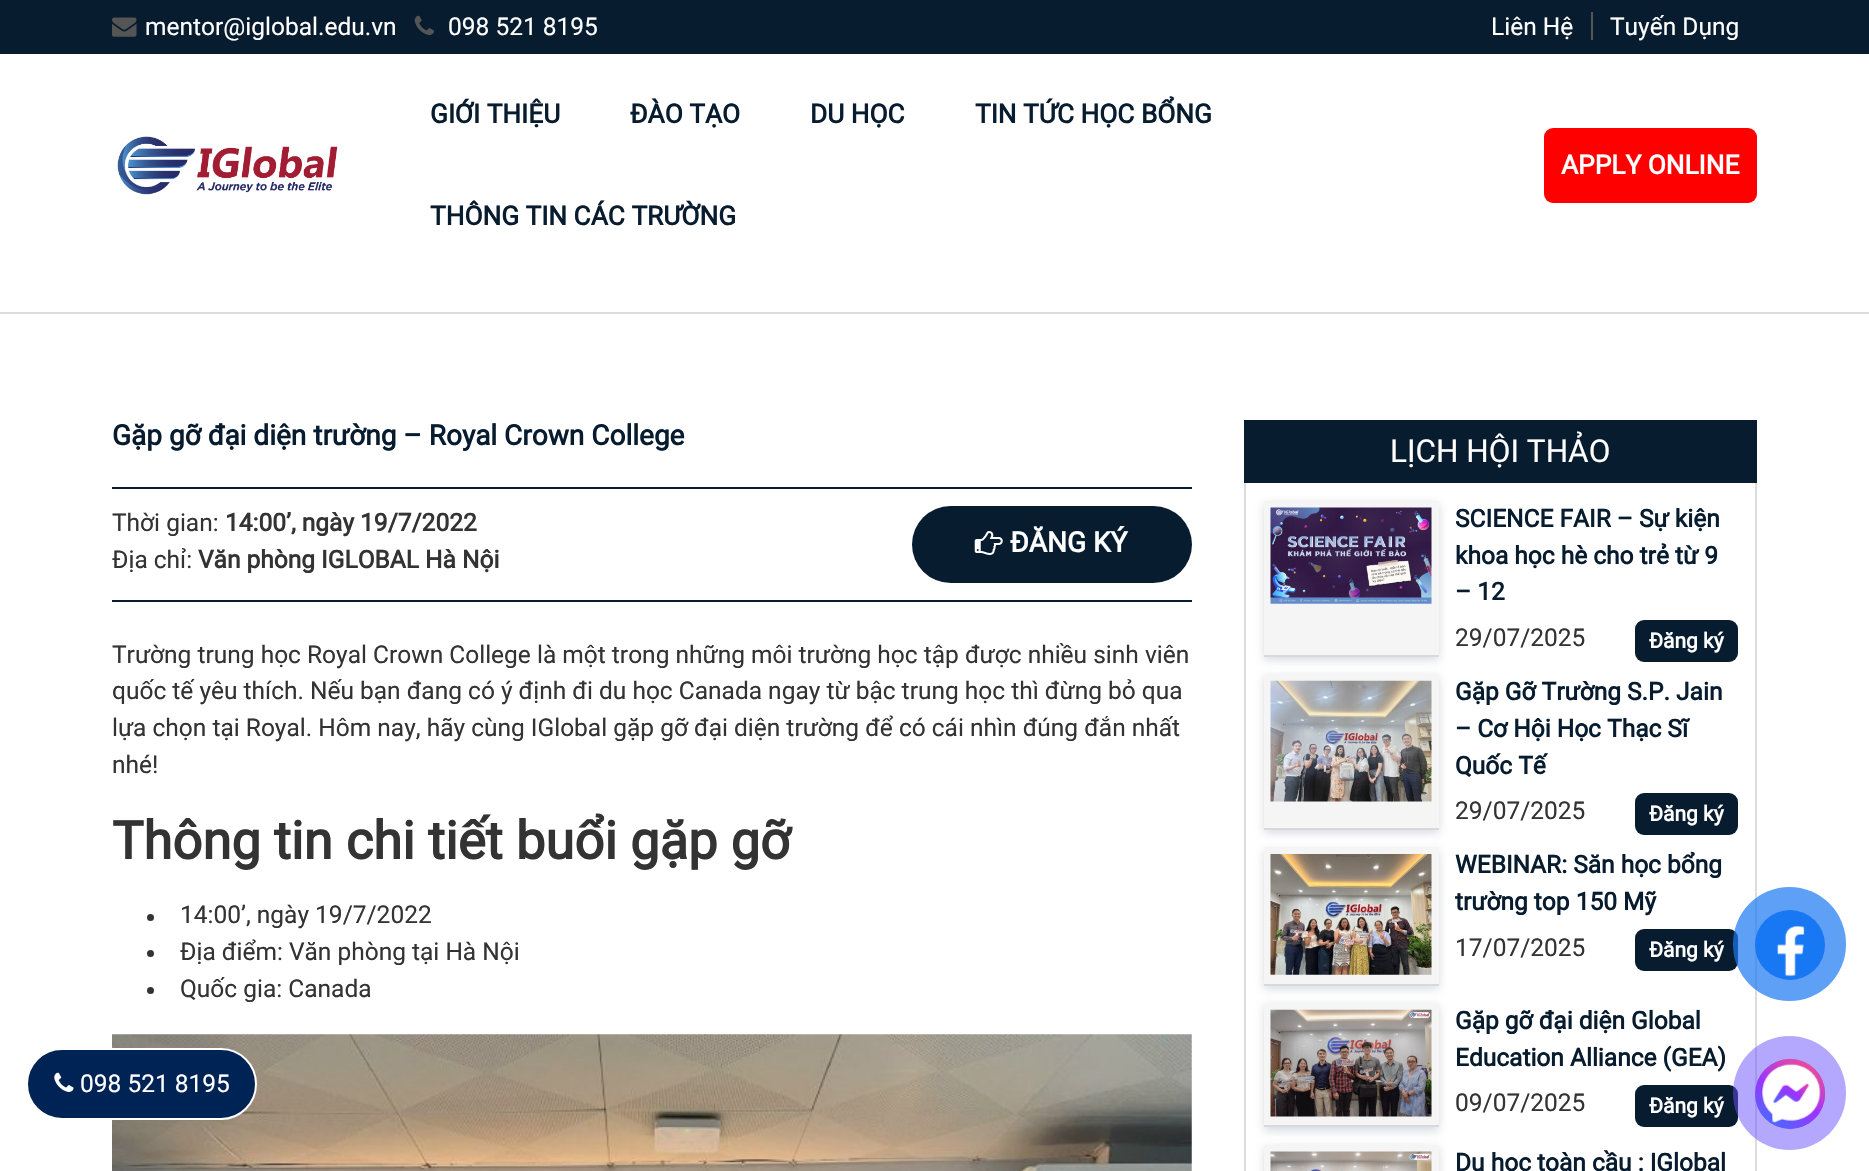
void draw(SkCanvas* canvas) {
  SkPaint paint;
  paint.setAntiAlias(true);
  auto face = [&](const char* family, int weight, float size, bool italic = false) {
    SkFontStyle style(weight, SkFontStyle::kNormal_Width,
      italic ? SkFontStyle::kItalic_Slant : SkFontStyle::kUpright_Slant);
    SkFont result(fontMgr->matchFamilyStyle(family, style), size);
    result.setSubpixel(true);
    return result;
  };
  auto paste = [&](const char* path, float x, float y, float w, float h) {
    auto image = SkImages::DeferredFromEncodedData(SkData::MakeFromFileName(path));
    canvas->drawImageRect(image, SkRect::MakeXYWH(x, y, w, h), SkSamplingOptions());
  };
  canvas->clear(0xffffffff);
  paint.setColor(0xff081c2f);
  canvas->drawRect(SkRect::MakeXYWH(0, 0, 1869, 54), paint);
  paste("img/1.png", 112, 17, 25, 20);
  paste("img/2.png", 414, 15, 20, 20);
  paint.setColor(0xff565555);
  canvas->drawRect(SkRect::MakeXYWH(1591, 12, 2, 28), paint);
  paste("img/3.png", 117, 136, 221, 59);
  paint.setColor(0xffff0000);
  canvas->drawRoundRect(SkRect::MakeXYWH(1544, 128, 213, 75), 9, 9, paint);
  {
    const struct { float x, y, w, h; SkColor color; } items[] = {
      {0, 312, 1869, 2, 0xffdddddd},
      {112, 487, 1080, 2, 0xff081c2f},
      {112, 600, 1080, 2, 0xff081c2f},
    };
    for (auto [x, y, w, h, color] : items) {
      paint.setColor(color);
      canvas->drawRect(SkRect::MakeXYWH(x, y, w, h), paint);
    }
  }
  canvas->drawRoundRect(SkRect::MakeXYWH(912, 506, 280, 77), 38.5f, 38.5f, paint);
  paste("img/4.png", 974, 531, 29, 24);
  paint.setColor(0xff333333);
  canvas->drawCircle(150.5f, 917.5f, 3.5f, paint);
  canvas->drawCircle(150.5f, 953.5f, 3.5f, paint);
  canvas->drawCircle(150.5f, 990.5f, 3.5f, paint);
  paste("img/5.png", 112, 1034, 1080, 137);
  {
    const struct { float x, y, w, h; SkColor color; } items[] = {
      {1244, 420, 513, 63, 0xff081c2f},
      {1755, 483, 2, 688, 0xffdddddd},
      {1244, 483, 2, 688, 0xffdddddd},
    };
    for (auto [x, y, w, h, color] : items) {
      paint.setColor(color);
      canvas->drawRect(SkRect::MakeXYWH(x, y, w, h), paint);
    }
  }
  paint.setColor(0xb3c4cad4);
  paint.setMaskFilter(SkMaskFilter::MakeBlur(kNormal_SkBlurStyle, 4.5f));
  canvas->drawRect(SkRect::MakeXYWH(1264, 504, 175, 156), paint);
  paint.setMaskFilter(nullptr);
  paint.setColor(0xfff5f5f5);
  canvas->drawRect(SkRect::MakeXYWH(1264, 501, 175, 154), paint);
  paint.setColor(0xffd9d9d9);
  canvas->drawRect(SkRect::MakeXYWH(1264, 655, 175, 2), paint);
  paste("img/6.png", 1270, 507, 162, 97);
  paint.setColor(0xff081c2f);
  canvas->drawRoundRect(SkRect::MakeXYWH(1635, 620, 103, 42), 9, 9, paint);
  paint.setColor(0xb3c4cad4);
  paint.setMaskFilter(SkMaskFilter::MakeBlur(kNormal_SkBlurStyle, 4.5f));
  canvas->drawRect(SkRect::MakeXYWH(1264, 677, 175, 156), paint);
  paint.setMaskFilter(nullptr);
  paint.setColor(0xfff5f5f5);
  canvas->drawRect(SkRect::MakeXYWH(1264, 674, 175, 154), paint);
  paint.setColor(0xffd9d9d9);
  canvas->drawRect(SkRect::MakeXYWH(1264, 828, 175, 2), paint);
  paste("img/7.png", 1270, 680, 162, 122);
  paint.setColor(0xff081c2f);
  canvas->drawRoundRect(SkRect::MakeXYWH(1635, 793, 103, 42), 9, 9, paint);
  paint.setColor(0xb3c4cad4);
  paint.setMaskFilter(SkMaskFilter::MakeBlur(kNormal_SkBlurStyle, 4.5f));
  canvas->drawRect(SkRect::MakeXYWH(1264, 851, 175, 138), paint);
  paint.setMaskFilter(nullptr);
  paint.setColor(0xfff5f5f5);
  canvas->drawRect(SkRect::MakeXYWH(1264, 847, 175, 137), paint);
  paint.setColor(0xffd9d9d9);
  canvas->drawRect(SkRect::MakeXYWH(1264, 984, 175, 2), paint);
  paste("img/8.png", 1270, 854, 162, 121);
  paint.setColor(0xff081c2f);
  canvas->drawRoundRect(SkRect::MakeXYWH(1635, 929, 103, 42), 9, 9, paint);
  paint.setColor(0xb3c4cad4);
  paint.setMaskFilter(SkMaskFilter::MakeBlur(kNormal_SkBlurStyle, 4.5f));
  canvas->drawRect(SkRect::MakeXYWH(1264, 1006, 175, 125), paint);
  paint.setMaskFilter(nullptr);
  paint.setColor(0xfff5f5f5);
  canvas->drawRect(SkRect::MakeXYWH(1264, 1003, 175, 122), paint);
  paint.setColor(0xffd9d9d9);
  canvas->drawRect(SkRect::MakeXYWH(1264, 1125, 175, 2), paint);
  paste("img/9.png", 1270, 1009, 162, 108);
  paint.setColor(0xff081c2f);
  canvas->drawRoundRect(SkRect::MakeXYWH(1635, 1085, 103, 42), 9, 9, paint);
  paint.setColor(0xb3c4cad4);
  paint.setMaskFilter(SkMaskFilter::MakeBlur(kNormal_SkBlurStyle, 4.5f));
  canvas->drawRect(SkRect::MakeXYWH(1264, 1148, 175, 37), paint);
  paint.setMaskFilter(nullptr);
  paint.setColor(0xfff5f5f5);
  canvas->drawRect(SkRect::MakeXYWH(1264, 1145, 175, 26), paint);
  paste("img/10.png", 1270, 1151, 162, 20);
  paint.setColor(0xb31877f2);
  canvas->drawRoundRect(SkRect::MakeXYWH(1733, 887, 113, 114), 56.5f, 56.5f, paint);
  paint.setColor(0xff1877f2);
  canvas->drawCircle(1790, 945, 35, paint);
  paste("img/11.png", 1777, 925, 28, 52);
  paint.setColor(0x806a4ffe);
  canvas->drawRoundRect(SkRect::MakeXYWH(1733, 1036, 113, 114), 56.5f, 56.5f, paint);
  paint.setColor(0xff6a4ffe);
  canvas->drawCircle(1790, 1094, 35, paint);
  paste("img/12.png", 1755, 1058, 71, 71);
  paint.setColor(0xff002355);
  canvas->drawRoundRect(SkRect::MakeXYWH(27, 1049, 229, 70), 35, 35, paint);
  paint.setStroke(true);
  paint.setStrokeWidth(2);
  paint.setColor(0xffffffff);
  canvas->drawRoundRect(SkRect::MakeXYWH(27, 1049, 229, 70), 35, 35, paint);
  paste("img/13.png", 54, 1072, 20, 20);
  auto f0 = face("Roboto", 400, 24.5f);
  paint.setStroke(false);
  {
    const struct { const char* s; float x, y; } items[] = {
      {"mentor@iglobal.edu.vn", 145, 35},
      {"098 521 8195", 448, 35},
      {"Liên Hệ", 1491, 35},
      {"Tuyến Dụng", 1610, 35},
    };
    for (auto [s, x, y] : items) {
      canvas->drawString(s, x, y, f0, paint);
    }
  }
  auto f1 = face("Roboto", 700, 26.25f);
  paint.setColor(0xff081c2f);
  {
    const struct { const char* s; float x, y; } items[] = {
      {"GIỚI THIỆU", 430, 123},
      {"ĐÀO TẠO", 630, 123},
      {"DU HỌC", 810, 123},
      {"TIN TỨC HỌC BỔNG", 975, 123},
      {"THÔNG TIN CÁC TRƯỜNG", 430, 225},
    };
    for (auto [s, x, y] : items) {
      canvas->drawString(s, x, y, f1, paint);
    }
  }
  paint.setColor(0xffffffff);
  canvas->drawString("APPLY ONLINE", 1561, 174, f1, paint);
  auto f2 = face("Roboto", 700, 28);
  paint.setColor(0xff081c2f);
  canvas->drawString("Gặp gỡ đại diện trường – Royal Crown College", 112, 445, f2, paint);
  paint.setColor(0xff333333);
  canvas->drawString("Thời gian:", 112, 531, f0, paint);
  auto f3 = face("Roboto", 700, 24.5f);
  canvas->drawString("14:00’, ngày 19/7/2022", 225, 531, f3, paint);
  canvas->drawString("Địa chỉ:", 112, 568, f0, paint);
  canvas->drawString("Văn phòng IGLOBAL Hà Nội", 198, 568, f3, paint);
  paint.setColor(0xffffffff);
  canvas->drawString("ĐĂNG KÝ", 1010, 552, f2, paint);
  paint.setColor(0xff333333);
  {
    const struct { const char* s; float x, y; } items[] = {
      {"Trường trung học Royal Crown College là một trong những môi trường học tập được nhiều sinh viên", 112, 663},
      {"quốc tế yêu thích. Nếu bạn đang có ý định đi du học Canada ngay từ bậc trung học thì đừng bỏ qua", 112, 699},
      {"lựa chọn tại Royal. Hôm nay, hãy cùng IGlobal gặp gỡ đại diện trường để có cái nhìn đúng đắn nhất", 112, 736},
      {"nhé!", 112, 773},
    };
    for (auto [s, x, y] : items) {
      canvas->drawString(s, x, y, f0, paint);
    }
  }
  auto f4 = face("Roboto", 700, 52.5f);
  canvas->drawString("Thông tin chi tiết buổi gặp gỡ", 112, 859, f4, paint);
  {
    const struct { const char* s; float x, y; } items[] = {
      {"14:00’, ngày 19/7/2022", 180, 923},
      {"Địa điểm: Văn phòng tại Hà Nội", 180, 960},
      {"Quốc gia: Canada", 180, 997},
    };
    for (auto [s, x, y] : items) {
      canvas->drawString(s, x, y, f0, paint);
    }
  }
  auto f5 = face("Roboto", 400, 31.5f);
  paint.setColor(0xffffffff);
  canvas->drawString("LỊCH HỘI THẢO", 1390, 462, f5, paint);
  paint.setColor(0xff081c2f);
  {
    const struct { const char* s; float x, y; } items[] = {
      {"SCIENCE FAIR – Sự kiện", 1455, 527},
      {"khoa học hè cho trẻ từ 9", 1455, 564},
      {"– 12", 1455, 600},
    };
    for (auto [s, x, y] : items) {
      canvas->drawString(s, x, y, f3, paint);
    }
  }
  paint.setColor(0xff333333);
  canvas->drawString("29/07/2025", 1455, 646, f0, paint);
  auto f6 = face("Roboto", 700, 21);
  paint.setColor(0xffffffff);
  canvas->drawString("Đăng ký", 1649, 648, f6, paint);
  paint.setColor(0xff081c2f);
  {
    const struct { const char* s; float x, y; } items[] = {
      {"Gặp Gỡ Trường S.P. Jain", 1455, 700},
      {"– Cơ Hội Học Thạc Sĩ", 1455, 737},
      {"Quốc Tế", 1455, 774},
    };
    for (auto [s, x, y] : items) {
      canvas->drawString(s, x, y, f3, paint);
    }
  }
  paint.setColor(0xff333333);
  canvas->drawString("29/07/2025", 1455, 819, f0, paint);
  paint.setColor(0xffffffff);
  canvas->drawString("Đăng ký", 1649, 821, f6, paint);
  paint.setColor(0xff081c2f);
  canvas->drawString("WEBINAR: Săn học bổng", 1455, 873, f3, paint);
  canvas->drawString("trường top 150 Mỹ", 1455, 910, f3, paint);
  paint.setColor(0xff333333);
  canvas->drawString("17/07/2025", 1455, 956, f0, paint);
  paint.setColor(0xffffffff);
  canvas->drawString("Đăng ký", 1649, 957, f6, paint);
  paint.setColor(0xff081c2f);
  canvas->drawString("Gặp gỡ đại diện Global", 1455, 1029, f3, paint);
  canvas->drawString("Education Alliance (GEA)", 1455, 1066, f3, paint);
  paint.setColor(0xff333333);
  canvas->drawString("09/07/2025", 1455, 1111, f0, paint);
  paint.setColor(0xffffffff);
  canvas->drawString("Đăng ký", 1649, 1113, f6, paint);
  paint.setColor(0xff081c2f);
  canvas->drawString("Du học toàn cầu : IGlobal", 1455, 1171, f3, paint);
  paint.setColor(0xffffffff);
  canvas->drawString("098 521 8195", 80, 1092, f0, paint);
}
